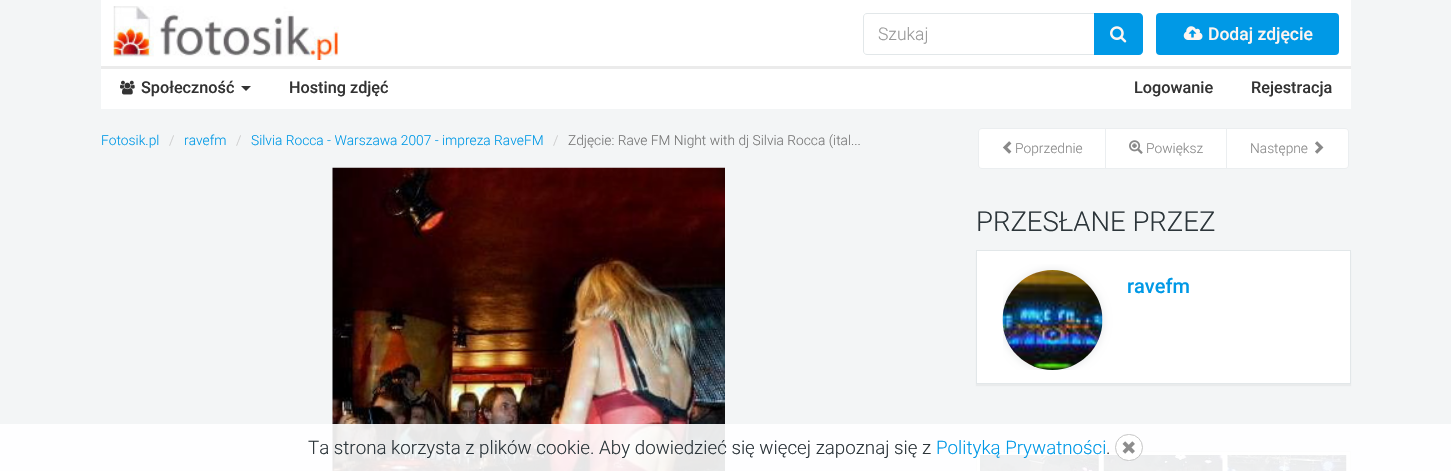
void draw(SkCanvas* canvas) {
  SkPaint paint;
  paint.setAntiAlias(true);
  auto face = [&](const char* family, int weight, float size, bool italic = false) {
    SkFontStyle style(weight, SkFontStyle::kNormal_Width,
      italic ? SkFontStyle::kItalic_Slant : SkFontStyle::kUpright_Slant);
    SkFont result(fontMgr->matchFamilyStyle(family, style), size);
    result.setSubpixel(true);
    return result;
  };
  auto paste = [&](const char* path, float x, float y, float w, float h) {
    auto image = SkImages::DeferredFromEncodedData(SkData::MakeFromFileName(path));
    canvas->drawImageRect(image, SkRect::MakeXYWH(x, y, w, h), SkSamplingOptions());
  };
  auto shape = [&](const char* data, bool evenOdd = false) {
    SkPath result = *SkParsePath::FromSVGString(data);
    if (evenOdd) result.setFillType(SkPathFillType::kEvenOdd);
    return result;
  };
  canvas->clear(0xfff3f5f6);
  paint.setColor(0xffffffff);
  canvas->drawRect(SkRect::MakeXYWH(101, 0, 1250, 109), paint);
  paste("img/1.png", 113, 6, 226, 54);
  paint.setStroke(true);
  paint.setStrokeWidth(1);
  paint.setColor(0xffe2e7e9);
  canvas->drawPath(shape("M867 13.5H1094.5V54.5H867C865 54.5 863.5 53 863.5 51V17C863.5 15 865 13.5 867 13.5Z"), paint);
  paint.setStroke(false);
  paint.setColor(0xff0099e6);
  canvas->drawPath(shape("M1094 13H1139C1141 13 1143 15 1143 17V51C1143 53 1141 55 1139 55H1094Z"), paint);
  paste("img/2.png", 1110, 26, 17, 17);
  canvas->drawRoundRect(SkRect::MakeXYWH(1156, 13, 183, 42), 4, 4, paint);
  paste("img/3.png", 1183, 26, 20, 14);
  paint.setColor(0xffebebeb);
  canvas->drawRect(SkRect::MakeXYWH(101, 66, 1250, 3), paint);
  paste("img/4.png", 120, 80, 15, 15);
  paint.setColor(0xff333333);
  canvas->drawPath(shape("M241 86H251L246 91Z"), paint);
  paste("img/5.png", 332, 167, 393, 304);
  paint.setColor(0xffffffff);
  canvas->drawPath(shape("M982 128.5H1105.5V168.5H982C980 168.5 978.5 167 978.5 165V132C978.5 130 980 128.5 982 128.5Z"), paint);
  paint.setStroke(true);
  paint.setColor(0xffebeef0);
  canvas->drawPath(shape("M982 128.5H1105.5V168.5H982C980 168.5 978.5 167 978.5 165V132C978.5 130 980 128.5 982 128.5Z"), paint);
  paste("img/6.png", 1002, 141, 10, 13);
  paint.setStroke(false);
  paint.setColor(0xffffffff);
  canvas->drawRect(SkRect::MakeXYWH(1106, 129, 120, 39), paint);
  paint.setStroke(true);
  paint.setColor(0xffebeef0);
  canvas->drawRect(SkRect::MakeXYWH(1105.5f, 128.5f, 122, 40), paint);
  paste("img/7.png", 1129, 140, 14, 14);
  paint.setStroke(false);
  paint.setColor(0xffffffff);
  canvas->drawPath(shape("M1226.5 128.5H1345C1347 128.5 1348.5 130 1348.5 132V165C1348.5 167 1347 168.5 1345 168.5H1226.5Z"), paint);
  paint.setStroke(true);
  paint.setColor(0xffebeef0);
  canvas->drawPath(shape("M1226.5 128.5H1345C1347 128.5 1348.5 130 1348.5 132V165C1348.5 167 1347 168.5 1345 168.5H1226.5Z"), paint);
  paste("img/8.png", 1315, 141, 9, 13);
  paint.setStroke(false);
  paint.setColor(0xffe9ebec);
  paint.setMaskFilter(SkMaskFilter::MakeBlur(kNormal_SkBlurStyle, 0.5f));
  canvas->drawRect(SkRect::MakeXYWH(976, 253, 375, 133), paint);
  paint.setMaskFilter(nullptr);
  paint.setColor(0xffffffff);
  canvas->drawRect(SkRect::MakeXYWH(976.5f, 250.5f, 374, 133), paint);
  paint.setStroke(true);
  paint.setColor(0xffe2e7e9);
  canvas->drawRect(SkRect::MakeXYWH(976.5f, 250.5f, 374, 133), paint);
  canvas->save();
  canvas->clipRect(SkRect::MakeXYWH(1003, 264, 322, 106));
  paint.setStroke(false);
  paint.setColor(0xffeff0f1);
  paint.setMaskFilter(SkMaskFilter::MakeBlur(kNormal_SkBlurStyle, 3));
  canvas->drawRoundRect(SkRect::MakeXYWH(1000, 268, 105, 105), 52.5f, 52.5f, paint);
  paint.setMaskFilter(nullptr);
  canvas->restore();
  paste("img/9.png", 1002, 270, 101, 100);
  paint.setColor(0xffffffff);
  canvas->drawRect(SkRect::MakeXYWH(976.5f, 451.5f, 374, 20), paint);
  paint.setStroke(true);
  paint.setColor(0xffe2e7e9);
  canvas->drawRect(SkRect::MakeXYWH(976.5f, 451.5f, 374, 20), paint);
  paste("img/10.png", 980, 455, 119, 16);
  paste("img/11.png", 1103, 455, 120, 16);
  paste("img/12.png", 1227, 455, 120, 16);
  paint.setStroke(false);
  paint.setColor(0xe6ffffff);
  canvas->drawRect(SkRect::MakeXYWH(0, 424, 1451, 47), paint);
  paint.setColor(0xffffffff);
  canvas->drawRoundRect(SkRect::MakeXYWH(1115.5f, 434.5f, 27, 26), 13, 13, paint);
  paint.setStroke(true);
  paint.setColor(0xffc6c6c6);
  canvas->drawRoundRect(SkRect::MakeXYWH(1115.5f, 434.5f, 27, 26), 13, 13, paint);
  paste("img/13.png", 1122, 441, 13, 13);
  auto f0 = face("Roboto", 300, 17.5f);
  paint.setStroke(false);
  paint.setColor(0xff999999);
  canvas->drawString("Szukaj", 878, 40, f0, paint);
  auto f1 = face("Roboto", 500, 17.5f);
  paint.setColor(0xfffff5f0);
  canvas->drawString("Dodaj zdjęcie", 1208, 40, f1, paint);
  auto f2 = face("Roboto", 500, 16.25f);
  paint.setColor(0xff333333);
  {
    const struct { const char* s; float x, y; } items[] = {
      {"Społeczność", 141, 93},
      {"Hosting zdjęć", 289, 93},
      {"Logowanie", 1134, 93},
      {"Rejestracja", 1251, 93},
    };
    for (auto [s, x, y] : items) {
      canvas->drawString(s, x, y, f2, paint);
    }
  }
  auto f3 = face("Roboto", 300, 13.75f);
  paint.setColor(0xff0099e6);
  canvas->drawString("Fotosik.pl", 101, 145, f3, paint);
  paint.setColor(0xffcccccc);
  canvas->drawString("/", 169, 145, f3, paint);
  paint.setColor(0xff0099e6);
  canvas->drawString("ravefm", 184, 145, f3, paint);
  paint.setColor(0xffcccccc);
  canvas->drawString("/", 236, 145, f3, paint);
  paint.setColor(0xff0099e6);
  canvas->drawString("Silvia Rocca - Warszawa 2007 - impreza RaveFM", 251, 145, f3, paint);
  paint.setColor(0xffcccccc);
  canvas->drawString("/", 553, 145, f3, paint);
  paint.setColor(0xff777777);
  canvas->drawString("Zdjęcie: Rave FM Night with dj Silvia Rocca (ital...", 568, 145, f3, paint);
  paint.setColor(0xff898989);
  {
    const struct { const char* s; float x, y; } items[] = {
      {"Poprzednie", 1015, 153},
      {"Powiększ", 1146, 153},
      {"Następne", 1250, 153},
    };
    for (auto [s, x, y] : items) {
      canvas->drawString(s, x, y, f3, paint);
    }
  }
  auto f4 = face("Roboto", 300, 27.5f);
  paint.setColor(0xff2c353a);
  canvas->drawString("PRZESŁANE PRZEZ", 976, 231, f4, paint);
  auto f5 = face("Roboto", 500, 20);
  paint.setColor(0xff0099e6);
  canvas->drawString("ravefm", 1127, 293, f5, paint);
  auto f6 = face("Roboto", 300, 18.75f);
  paint.setColor(0xff2c353a);
  canvas->drawString("Ta strona korzysta z plików cookie. Aby dowiedzieć się więcej zapoznaj się z", 308, 454, f6, paint);
  paint.setColor(0xff0099e6);
  canvas->drawString("Polityką Prywatności", 936, 454, f6, paint);
  paint.setColor(0xff2c353a);
  canvas->drawString(".", 1106, 454, f6, paint);
}
